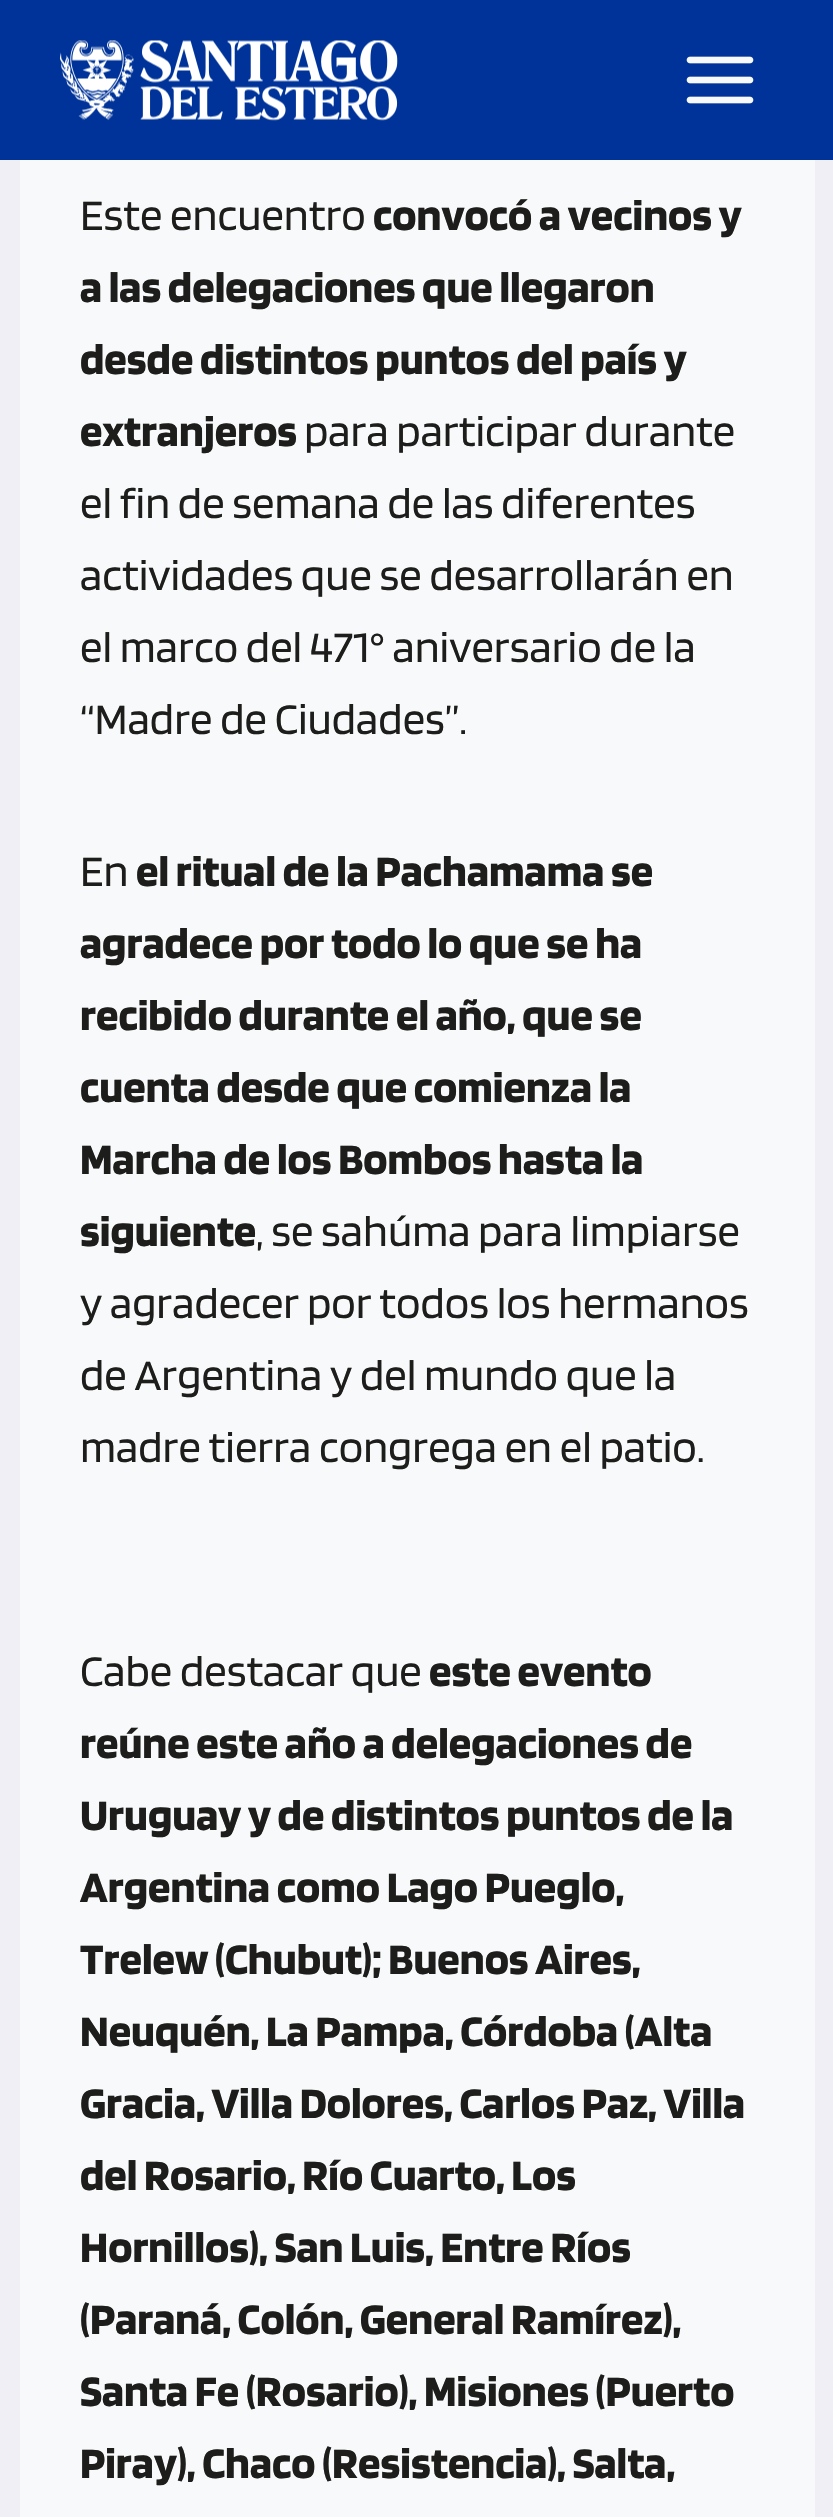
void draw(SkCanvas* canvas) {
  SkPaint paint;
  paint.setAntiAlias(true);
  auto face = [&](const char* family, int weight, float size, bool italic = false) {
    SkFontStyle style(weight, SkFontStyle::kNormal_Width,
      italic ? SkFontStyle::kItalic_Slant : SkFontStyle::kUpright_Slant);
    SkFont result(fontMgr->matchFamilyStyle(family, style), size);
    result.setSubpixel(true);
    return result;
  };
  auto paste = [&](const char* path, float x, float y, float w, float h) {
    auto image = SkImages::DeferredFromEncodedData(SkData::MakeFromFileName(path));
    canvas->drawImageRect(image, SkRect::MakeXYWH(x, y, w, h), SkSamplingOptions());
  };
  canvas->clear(0xffefeff5);
  paint.setColor(0xff003399);
  canvas->drawRect(SkRect::MakeXYWH(0, 0, 833, 160), paint);
  paste("img/1.png", 60, 40, 338, 81);
  paste("img/2.png", 686, 56, 68, 48);
  paint.setColor(0xfff8f9fa);
  canvas->drawRect(SkRect::MakeXYWH(20, 160, 795, 2357), paint);
  auto f0 = face("Blinker", 400, 45);
  paint.setColor(0xff1d1d1b);
  canvas->drawString("Este encuentro", 80, 230, f0, paint);
  auto f1 = face("Blinker", 700, 45);
  {
    const struct { const char* s; float x, y; } items[] = {
      {"convocó a vecinos y", 373, 230},
      {"a las delegaciones que llegaron", 80, 302},
      {"desde distintos puntos del país y", 80, 374},
      {"extranjeros", 80, 446},
    };
    for (auto [s, x, y] : items) {
      canvas->drawString(s, x, y, f1, paint);
    }
  }
  {
    const struct { const char* s; float x, y; } items[] = {
      {"para participar durante", 304, 446},
      {"el fin de semana de las diferentes", 80, 518},
      {"actividades que se desarrollarán en", 80, 590},
      {"el marco del 471° aniversario de la", 80, 662},
      {"“Madre de Ciudades”.", 80, 734},
      {"En", 80, 886},
    };
    for (auto [s, x, y] : items) {
      canvas->drawString(s, x, y, f0, paint);
    }
  }
  {
    const struct { const char* s; float x, y; } items[] = {
      {"el ritual de la Pachamama se", 136, 886},
      {"agradece por todo lo que se ha", 80, 958},
      {"recibido durante el año, que se", 80, 1030},
      {"cuenta desde que comienza la", 80, 1102},
      {"Marcha de los Bombos hasta la", 80, 1174},
      {"siguiente", 80, 1246},
    };
    for (auto [s, x, y] : items) {
      canvas->drawString(s, x, y, f1, paint);
    }
  }
  {
    const struct { const char* s; float x, y; } items[] = {
      {", se sahúma para limpiarse", 256, 1246},
      {"y agradecer por todos los hermanos", 80, 1318},
      {"de Argentina y del mundo que la", 80, 1390},
      {"madre tierra congrega en el patio.", 80, 1462},
      {"Cabe destacar que", 80, 1686},
    };
    for (auto [s, x, y] : items) {
      canvas->drawString(s, x, y, f0, paint);
    }
  }
  {
    const struct { const char* s; float x, y; } items[] = {
      {"este evento", 429, 1686},
      {"reúne este año a delegaciones de", 80, 1758},
      {"Uruguay y de distintos puntos de la", 80, 1830},
      {"Argentina como Lago Pueglo,", 80, 1902},
      {"Trelew (Chubut); Buenos Aires,", 80, 1974},
      {"Neuquén, La Pampa, Córdoba (Alta", 80, 2046},
      {"Gracia, Villa Dolores, Carlos Paz, Villa", 80, 2118},
      {"del Rosario, Río Cuarto, Los", 80, 2190},
      {"Hornillos), San Luis, Entre Ríos", 80, 2262},
      {"(Paraná, Colón, General Ramírez),", 80, 2334},
      {"Santa Fe (Rosario), Misiones (Puerto", 80, 2406},
      {"Piray), Chaco (Resistencia), Salta,", 80, 2478},
    };
    for (auto [s, x, y] : items) {
      canvas->drawString(s, x, y, f1, paint);
    }
  }
}
